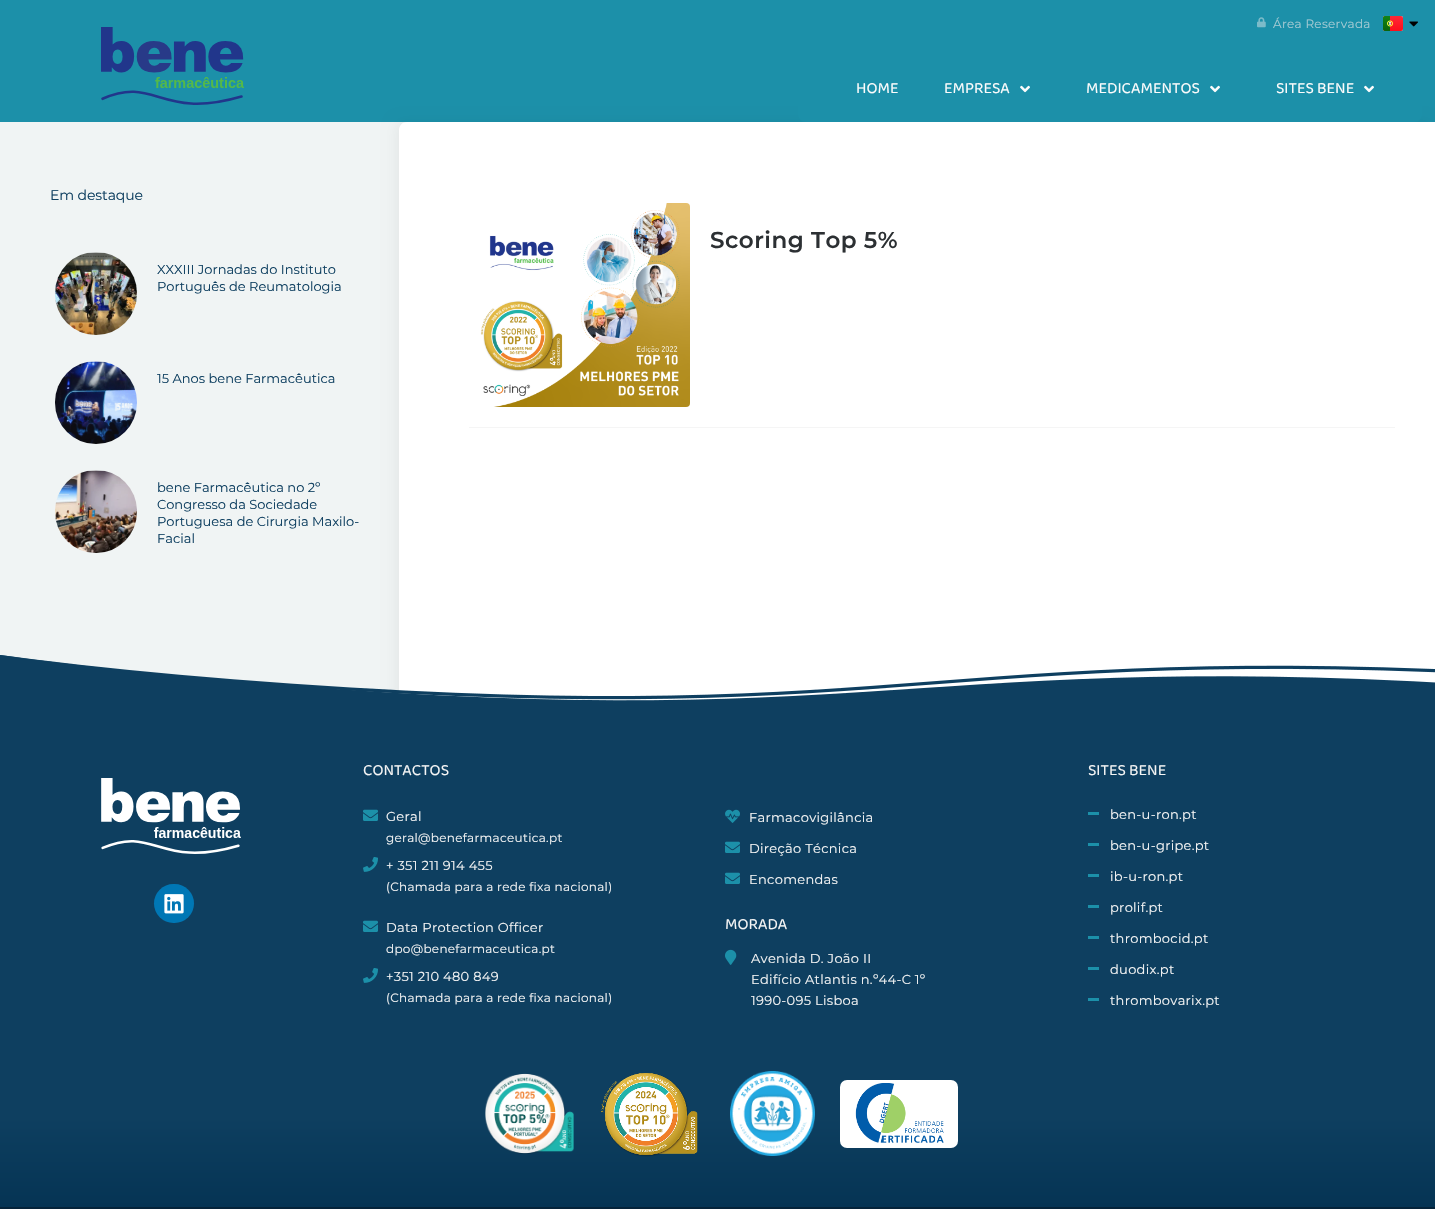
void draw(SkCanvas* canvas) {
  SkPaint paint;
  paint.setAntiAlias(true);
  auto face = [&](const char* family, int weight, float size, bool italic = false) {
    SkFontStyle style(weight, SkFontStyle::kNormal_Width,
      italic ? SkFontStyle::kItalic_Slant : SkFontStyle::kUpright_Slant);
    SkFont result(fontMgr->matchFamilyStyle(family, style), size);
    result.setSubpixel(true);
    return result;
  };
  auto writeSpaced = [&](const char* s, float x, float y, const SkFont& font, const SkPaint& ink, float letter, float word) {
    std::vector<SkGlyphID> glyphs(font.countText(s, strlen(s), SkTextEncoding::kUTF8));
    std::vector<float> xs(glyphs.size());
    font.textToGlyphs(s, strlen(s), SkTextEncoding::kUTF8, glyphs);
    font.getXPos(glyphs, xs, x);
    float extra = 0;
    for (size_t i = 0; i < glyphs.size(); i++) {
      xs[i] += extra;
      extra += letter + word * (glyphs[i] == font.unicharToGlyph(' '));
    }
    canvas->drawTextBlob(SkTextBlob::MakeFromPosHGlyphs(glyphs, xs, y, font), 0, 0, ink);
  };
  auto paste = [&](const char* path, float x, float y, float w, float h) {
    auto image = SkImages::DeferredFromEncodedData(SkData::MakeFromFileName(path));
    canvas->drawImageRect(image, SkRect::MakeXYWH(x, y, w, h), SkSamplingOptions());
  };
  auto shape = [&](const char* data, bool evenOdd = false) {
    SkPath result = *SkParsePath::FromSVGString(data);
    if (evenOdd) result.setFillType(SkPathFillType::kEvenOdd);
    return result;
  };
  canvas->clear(0xff1c90a9);
  paste("img/1.png", 101, 27, 143, 78);
  paste("img/2.png", 1257, 17, 9, 11);
  paste("img/3.png", 1383, 16, 20, 15);
  paste("img/4.png", 1409, 21, 9, 6);
  paint.setColor(0xfff0f4f4);
  canvas->drawRect(SkRect::MakeXYWH(0, 122, 407, 572), paint);
  paint.setColor(0x0d000000);
  paint.setMaskFilter(SkMaskFilter::MakeBlur(kNormal_SkBlurStyle, 7));
  canvas->drawRoundRect(SkRect::MakeXYWH(396, 122, 1036, 635), 8, 8, paint);
  paint.setMaskFilter(nullptr);
  paint.setColor(0xff1c90a9);
  canvas->drawRoundRect(SkRect::MakeXYWH(798, 56, 624, 66), 8, 8, paint);
  paste("img/5.png", 1020, 85, 10, 8);
  paste("img/5.png", 1210, 85, 10, 8);
  paste("img/5.png", 1364, 85, 10, 8);
  paste("img/6.png", 55, 252, 82, 83);
  paste("img/7.png", 55, 361, 82, 83);
  paste("img/8.png", 55, 470, 82, 83);
  paint.setColor(0xffffffff);
  canvas->drawPath(shape("M407 122H1435V757H399V130C399 125.5 402.5 122 407 122Z"), paint);
  paint.setColor(0xfff5f5f5);
  canvas->drawRect(SkRect::MakeXYWH(469, 427, 926, 1), paint);
  paste("img/9.png", 480, 203, 210, 204);
  paste("img/10.png", 0, 655, 1435, 58);
  paint.setColor(0xff0e3f60);
  canvas->drawRect(SkRect::MakeXYWH(0, 713, 1435, 348), paint);
  paste("img/11.png", 101, 778, 140, 76);
  paint.setColor(0xff0077b5);
  canvas->drawRoundRect(SkRect::MakeXYWH(154, 884, 40, 39), 19.5f, 19.5f, paint);
  paste("img/12.png", 164, 894, 20, 20);
  paste("img/13.png", 363, 809, 15, 12);
  paste("img/14.png", 363, 857, 15, 15);
  paste("img/13.png", 363, 920, 15, 12);
  paste("img/14.png", 363, 968, 15, 15);
  paste("img/15.png", 725, 809, 15, 14);
  paste("img/13.png", 725, 841, 15, 12);
  paste("img/13.png", 725, 872, 15, 12);
  paste("img/16.png", 725, 949, 12, 16);
  {
    const struct { float x, y, w, h; SkColor color; } items[] = {
      {1088, 812, 11, 3, 0xff1c90a9},
      {1088, 843, 11, 3, 0xff1c90a9},
      {1088, 874, 11, 3, 0xff1c90a9},
      {1088, 905, 11, 3, 0xff1c90a9},
      {1088, 936, 11, 3, 0xff1c90a9},
      {1088, 967, 11, 3, 0xff1c90a9},
      {1088, 998, 11, 3, 0xff1c90a9},
    };
    for (auto [x, y, w, h, color] : items) {
      paint.setColor(color);
      canvas->drawRect(SkRect::MakeXYWH(x, y, w, h), paint);
    }
  }
  {
    const SkColor colors[] = {0xff0e3f60, 0xff053454};
    const float stops[] = {0.38f, 1};
    const SkPoint ends[] = {{718, 1061}, {718, 1207}};
    paint.setShader(SkGradientShader::MakeLinear(ends, colors, stops, 2, SkTileMode::kClamp));
    paint.setAlpha(255);
  }
  canvas->drawRect(SkRect::MakeXYWH(0, 1061, 1435, 146), paint);
  paste("img/17.png", 485, 1073, 89, 81);
  paste("img/18.png", 601, 1073, 97, 84);
  paste("img/19.png", 730, 1071, 85, 85);
  paint.setShader(nullptr);
  paint.setColor(0xffffffff);
  canvas->drawRoundRect(SkRect::MakeXYWH(840, 1080, 118, 68), 7, 7, paint);
  paste("img/20.png", 855, 1083, 89, 60);
  paint.setColor(0xff04233a);
  canvas->drawRect(SkRect::MakeXYWH(0, 1207, 1435, 2), paint);
  auto f0 = face("Montserrat", 400, 12);
  paint.setColor(0xffa4cad3);
  writeSpaced("Área Reservada", 1273, 28, f0, paint, 0.3f, 0);
  auto f1 = face("Baloo 2", 400, 16);
  paint.setColor(0xfffcfcfc);
  {
    const struct { const char* s; float x, y; } items[] = {
      {"HOME", 856, 93},
      {"EMPRESA", 944, 93},
      {"MEDICAMENTOS", 1086, 93},
      {"SITES BENE", 1276, 93},
    };
    for (auto [s, x, y] : items) {
      canvas->drawString(s, x, y, f1, paint);
    }
  }
  auto f2 = face("Montserrat", 400, 14);
  paint.setColor(0xff0e3f60);
  writeSpaced("Em destaque", 50, 200, f2, paint, -0.1f, 0);
  auto f3 = face("Montserrat", 400, 13);
  {
    const struct { const char* s; float x, y; } items[] = {
      {"XXXIII Jornadas do Instituto", 157, 274},
      {"Português de Reumatologia", 157, 291},
      {"15 Anos bene Farmacêutica", 157, 383},
      {"bene Farmacêutica no 2º", 157, 492},
      {"Congresso da Sociedade", 157, 509},
      {"Portuguesa de Cirurgia Maxilo-", 157, 526},
      {"Facial", 157, 543},
    };
    for (auto [s, x, y] : items) {
      canvas->drawString(s, x, y, f3, paint);
    }
  }
  auto f4 = face("Montserrat", 600, 23);
  paint.setColor(0xff2c3033);
  writeSpaced("Scoring Top 5%", 710, 248, f4, paint, 0.5f, 0);
  paint.setColor(0xfff5f5f5);
  canvas->drawString("CONTACTOS", 363, 775, f1, paint);
  writeSpaced("Geral", 386, 821, f3, paint, 0.3f, 0);
  writeSpaced("geral@benefarmaceutica.pt", 386, 842, f0, paint, 0.3f, 0);
  writeSpaced("+ 351 211 914 455", 386, 870, f3, paint, 0.3f, 0);
  writeSpaced("(Chamada para a rede fixa nacional)", 386, 891, f0, paint, 0.3f, 0);
  writeSpaced("Data Protection Officer", 386, 932, f3, paint, 0.3f, 0);
  writeSpaced("dpo@benefarmaceutica.pt", 386, 953, f0, paint, 0.3f, 0);
  writeSpaced("+351 210 480 849", 386, 981, f3, paint, 0.3f, 0);
  writeSpaced("(Chamada para a rede fixa nacional)", 386, 1002, f0, paint, 0.3f, 0);
  {
    const struct { const char* s; float x, y; } items[] = {
      {"Farmacovigilância", 749, 822},
      {"Direção Técnica", 749, 853},
      {"Encomendas", 749, 884},
    };
    for (auto [s, x, y] : items) {
      writeSpaced(s, x, y, f3, paint, 0.3f, 0);
    }
  }
  canvas->drawString("MORADA", 725, 929, f1, paint);
  {
    const struct { const char* s; float x, y; } items[] = {
      {"Avenida D. João II", 751, 963},
      {"Edifício Atlantis n.º44-C 1º", 751, 984},
      {"1990-095 Lisboa", 751, 1005},
    };
    for (auto [s, x, y] : items) {
      writeSpaced(s, x, y, f3, paint, 0.3f, 0);
    }
  }
  canvas->drawString("SITES BENE", 1088, 775, f1, paint);
  {
    const struct { const char* s; float x, y; } items[] = {
      {"ben-u-ron.pt", 1110, 819},
      {"ben-u-gripe.pt", 1110, 850},
      {"ib-u-ron.pt", 1110, 881},
      {"prolif.pt", 1110, 912},
      {"thrombocid.pt", 1110, 943},
      {"duodix.pt", 1110, 974},
      {"thrombovarix.pt", 1110, 1005},
    };
    for (auto [s, x, y] : items) {
      writeSpaced(s, x, y, f3, paint, 0.3f, 0);
    }
  }
}
